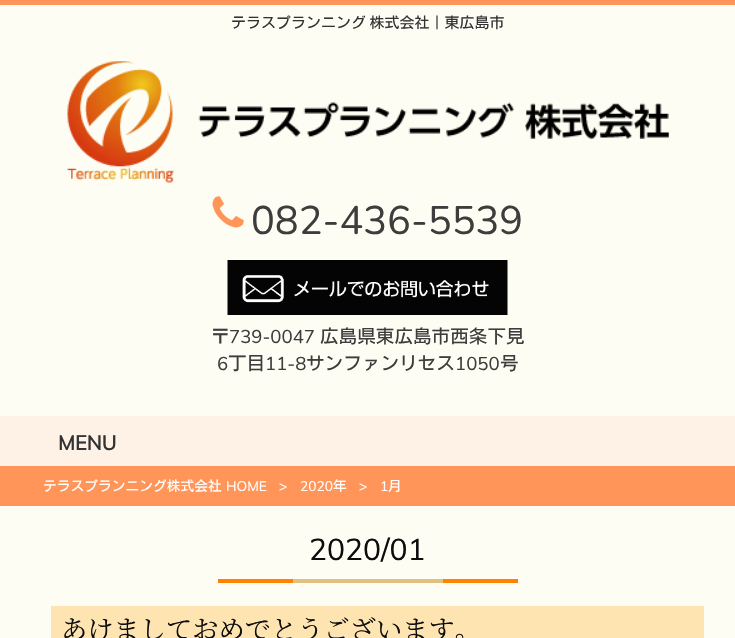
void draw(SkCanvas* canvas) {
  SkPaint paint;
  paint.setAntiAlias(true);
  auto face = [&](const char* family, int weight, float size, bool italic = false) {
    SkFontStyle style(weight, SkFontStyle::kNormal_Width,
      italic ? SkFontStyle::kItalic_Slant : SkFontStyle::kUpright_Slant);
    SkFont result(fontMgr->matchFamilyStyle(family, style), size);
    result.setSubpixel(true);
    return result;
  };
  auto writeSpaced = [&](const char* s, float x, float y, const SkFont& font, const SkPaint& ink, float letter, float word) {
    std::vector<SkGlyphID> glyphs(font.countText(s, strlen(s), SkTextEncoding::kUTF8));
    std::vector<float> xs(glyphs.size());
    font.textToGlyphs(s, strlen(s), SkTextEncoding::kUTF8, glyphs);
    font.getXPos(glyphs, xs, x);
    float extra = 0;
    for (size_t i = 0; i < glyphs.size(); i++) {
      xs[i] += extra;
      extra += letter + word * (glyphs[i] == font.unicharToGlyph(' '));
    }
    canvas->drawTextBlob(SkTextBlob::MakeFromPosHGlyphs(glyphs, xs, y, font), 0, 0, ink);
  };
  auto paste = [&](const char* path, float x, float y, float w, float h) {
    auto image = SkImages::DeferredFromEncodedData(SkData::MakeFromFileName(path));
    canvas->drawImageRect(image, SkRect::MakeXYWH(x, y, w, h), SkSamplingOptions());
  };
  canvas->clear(0xfffdfdf3);
  paint.setColor(0xffff9559);
  canvas->drawRect(SkRect::MakeXYWH(0, 0, 735, 5), paint);
  paste("img/1.png", 67, 61, 602, 122);
  paste("img/2.png", 212, 196, 32, 32);
  paste("img/3.png", 227, 260, 281, 55);
  {
    const struct { float x, y, w, h; SkColor color; } items[] = {
      {0, 416, 735, 50, 0xfffef1e6},
      {0, 466, 735, 40, 0xffff9559},
      {218, 579, 300, 4, 0xffff8300},
      {293, 579, 150, 4, 0xffe1bf7e},
      {51, 606, 653, 32, 0xfffee4b1},
    };
    for (auto [x, y, w, h, color] : items) {
      paint.setColor(color);
      canvas->drawRect(SkRect::MakeXYWH(x, y, w, h), paint);
    }
  }
  auto f0 = face("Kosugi", 400, 15);
  paint.setColor(0xff333333);
  writeSpaced("テラスプランニング 株式会社｜東広島市", 231, 28, f0, paint, 0, -4);
  auto f1 = face("Nunito", 200, 39.75f);
  paint.setColor(0xff3d3d3d);
  canvas->drawString("082-436-5539", 251, 234, f1, paint);
  auto f2 = face("Kosugi", 400, 18.6f);
  canvas->drawString("〒", 211, 343, f2, paint);
  auto f3 = face("Nunito", 200, 18.6f);
  canvas->drawString("739-0047", 229, 343, f3, paint);
  canvas->drawString("広島県東広島市西条下見", 320, 343, f2, paint);
  canvas->drawString("6", 217, 370, f3, paint);
  canvas->drawString("丁目", 228, 370, f2, paint);
  canvas->drawString("11-8", 265, 370, f3, paint);
  canvas->drawString("サンファンリセス", 306, 370, f2, paint);
  canvas->drawString("1050", 455, 370, f3, paint);
  canvas->drawString("号", 500, 370, f2, paint);
  auto f4 = face("Muli", 700, 20);
  paint.setColor(0xff333333);
  canvas->drawString("MENU", 58, 450, f4, paint);
  auto f5 = face("Kosugi", 400, 13.75f);
  paint.setColor(0xffffffff);
  canvas->drawString("テラスプランニング株式会社", 43, 491, f5, paint);
  auto f6 = face("Muli", 400, 13.75f);
  {
    const struct { const char* s; float x, y; } items[] = {
      {"HOME", 226, 491},
      {">", 279, 491},
      {"2020", 300, 491},
    };
    for (auto [s, x, y] : items) {
      canvas->drawString(s, x, y, f6, paint);
    }
  }
  canvas->drawString("年", 333, 491, f5, paint);
  canvas->drawString(">", 359, 491, f6, paint);
  canvas->drawString("1", 380, 491, f6, paint);
  canvas->drawString("月", 388, 491, f5, paint);
  auto f7 = face("Muli", 400, 30);
  paint.setColor(0xff0d0d0d);
  canvas->drawString("2020/01", 309, 560, f7, paint);
  auto f8 = face("Noto Serif JP", 200, 26.25f);
  canvas->drawString("あけましておめでとうございます。", 61, 639, f8, paint);
}
